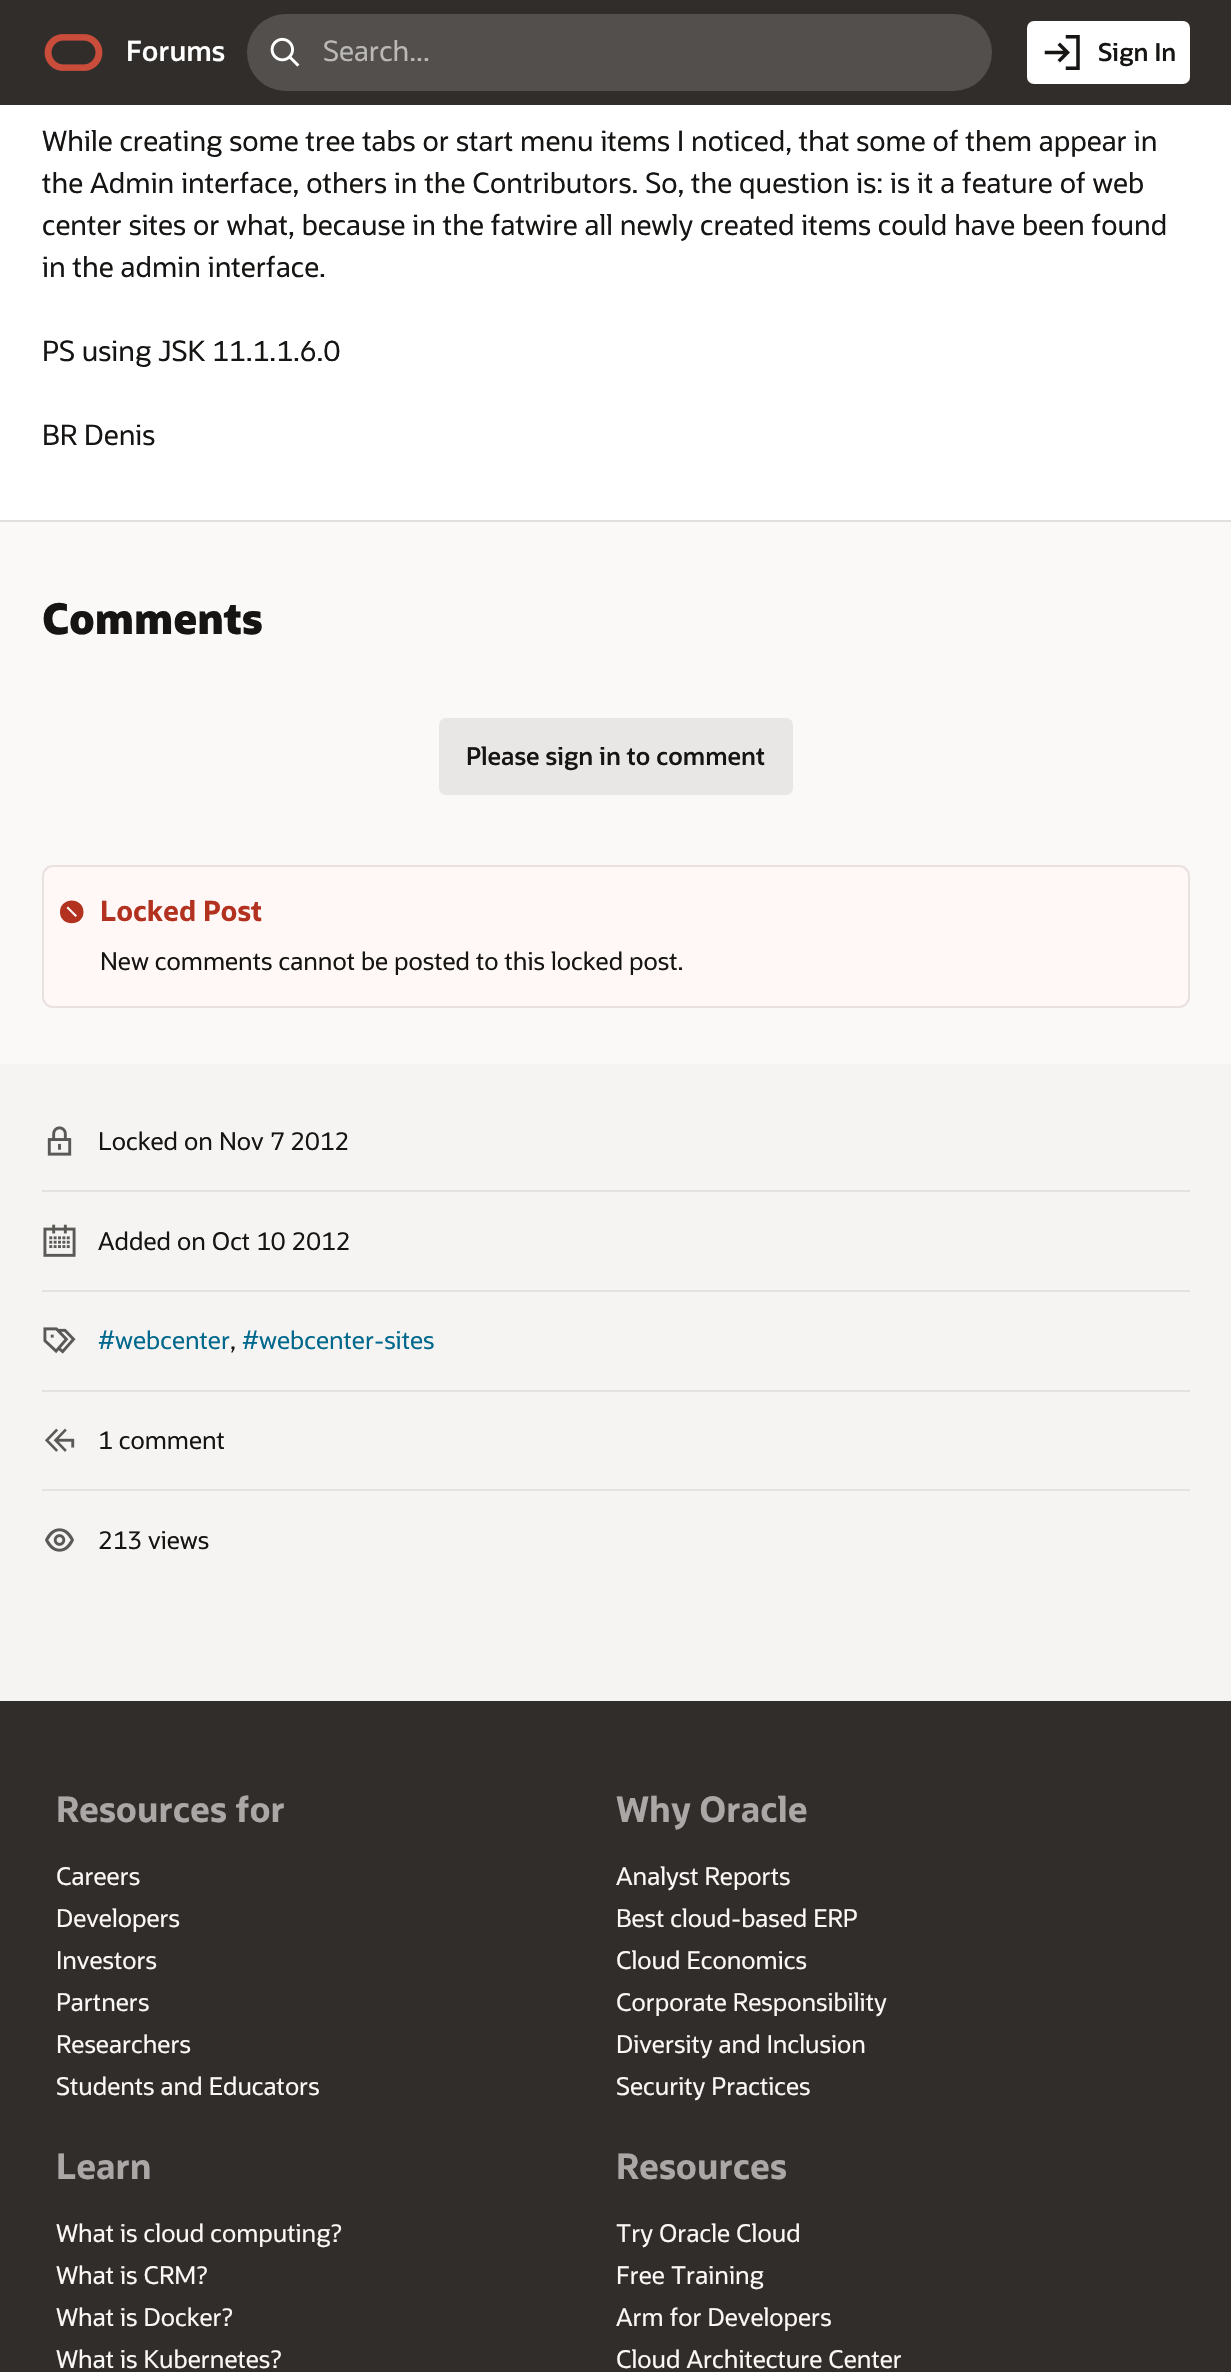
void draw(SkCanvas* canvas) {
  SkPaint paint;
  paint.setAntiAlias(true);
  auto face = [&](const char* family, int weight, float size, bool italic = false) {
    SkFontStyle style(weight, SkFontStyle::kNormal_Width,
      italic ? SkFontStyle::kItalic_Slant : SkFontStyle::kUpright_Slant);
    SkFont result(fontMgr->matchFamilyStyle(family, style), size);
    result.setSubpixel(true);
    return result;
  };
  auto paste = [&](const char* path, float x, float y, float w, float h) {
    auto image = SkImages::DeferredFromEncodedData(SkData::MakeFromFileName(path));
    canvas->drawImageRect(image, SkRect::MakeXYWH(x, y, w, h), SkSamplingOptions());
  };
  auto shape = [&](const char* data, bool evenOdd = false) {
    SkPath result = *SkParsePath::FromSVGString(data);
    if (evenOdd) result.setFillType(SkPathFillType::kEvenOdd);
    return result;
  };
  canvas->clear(0xff312d2a);
  paste("img/1.png", 44, 34, 59, 37);
  paint.setColor(0xff524f4c);
  canvas->drawRoundRect(SkRect::MakeXYWH(247, 14, 745, 77), 38.5f, 38.5f, paint);
  paste("img/2.png", 270, 37, 30, 30);
  paint.setColor(0xffffffff);
  canvas->drawRoundRect(SkRect::MakeXYWH(1027, 21, 163, 63), 7, 7, paint);
  paste("img/3.png", 1044, 35, 36, 35);
  {
    const struct { float x, y, w, h; SkColor color; } items[] = {
      {0, 522, 1231, 542, 0xfffbf9f8},
      {0, 105, 1231, 415, 0xffffffff},
      {0, 520, 1231, 2, 0xffe2e0df},
    };
    for (auto [x, y, w, h, color] : items) {
      paint.setColor(color);
      canvas->drawRect(SkRect::MakeXYWH(x, y, w, h), paint);
    }
  }
  paint.setColor(0xffe9e7e6);
  canvas->drawRoundRect(SkRect::MakeXYWH(439, 718, 354, 77), 7, 7, paint);
  paint.setColor(0xfffff8f7);
  canvas->drawRoundRect(SkRect::MakeXYWH(43, 866, 1146, 141), 10, 10, paint);
  paint.setStroke(true);
  paint.setStrokeWidth(2);
  paint.setColor(0xffe8e1e0);
  canvas->drawRoundRect(SkRect::MakeXYWH(43, 866, 1146, 141), 10, 10, paint);
  paint.setStroke(false);
  paint.setColor(0xffb3311f);
  canvas->drawPath(shape("M60 912C60 927 83.5 927 83.5 912C83.5 896.5 60 896.5 60 912ZM66.5 908L68 906.5L77 915.5L75.5 917Z"), paint);
  paint.setColor(0xfff5f4f2);
  canvas->drawRect(SkRect::MakeXYWH(0, 1064, 1231, 637), paint);
  paint.setColor(0xffe3e2e0);
  canvas->drawRect(SkRect::MakeXYWH(42, 1190, 1148, 2), paint);
  paste("img/4.png", 47, 1126, 25, 30);
  canvas->drawRect(SkRect::MakeXYWH(42, 1290, 1148, 2), paint);
  paste("img/5.png", 43, 1224, 33, 33);
  canvas->drawRect(SkRect::MakeXYWH(42, 1390, 1148, 2), paint);
  paste("img/6.png", 43, 1327, 33, 27);
  canvas->drawRect(SkRect::MakeXYWH(42, 1489, 1148, 2), paint);
  paste("img/7.png", 45, 1428, 30, 24);
  paste("img/8.png", 45, 1528, 29, 24);
  auto f0 = face("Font", 600, 28);
  paint.setColor(0xffffffff);
  canvas->drawString("Forums", 126, 61, f0, paint);
  auto f1 = face("Font", 400, 28);
  paint.setColor(0xffbab9b7);
  canvas->drawString("Search...", 323, 61, f1, paint);
  auto f2 = face("Font", 600, 24.5f);
  paint.setColor(0xff161513);
  canvas->drawString("Sign In", 1098, 61, f2, paint);
  {
    const struct { const char* s; float x, y; } items[] = {
      {"While creating some tree tabs or start menu items I noticed, that some of them appear in", 42, 151},
      {"the Admin interface, others in the Contributors. So, the question is: is it a feature of web", 42, 193},
      {"center sites or what, because in the fatwire all newly created items could have been found", 42, 235},
      {"in the admin interface.", 42, 277},
      {"PS using JSK 11.1.1.6.0", 42, 361},
      {"BR Denis", 42, 445},
    };
    for (auto [s, x, y] : items) {
      canvas->drawString(s, x, y, f1, paint);
    }
  }
  auto f3 = face("Font", 800, 42);
  canvas->drawString("Comments", 42, 634, f3, paint);
  canvas->drawString("Please sign in to comment", 466, 765, f2, paint);
  auto f4 = face("Font", 700, 28);
  paint.setColor(0xffb3311f);
  canvas->drawString("Locked Post", 100, 921, f4, paint);
  auto f5 = face("Font", 400, 24.5f);
  paint.setColor(0xff161513);
  {
    const struct { const char* s; float x, y; } items[] = {
      {"New comments cannot be posted to this locked post.", 100, 970},
      {"Locked on Nov 7 2012", 98, 1150},
      {"Added on Oct 10 2012", 98, 1250},
    };
    for (auto [s, x, y] : items) {
      canvas->drawString(s, x, y, f5, paint);
    }
  }
  paint.setColor(0xff00688c);
  canvas->drawString("#webcenter", 98, 1349, f5, paint);
  paint.setColor(0xff161513);
  canvas->drawString(",", 230, 1349, f5, paint);
  paint.setColor(0xff00688c);
  canvas->drawString("#webcenter-sites", 242, 1349, f5, paint);
  paint.setColor(0xff161513);
  canvas->drawString("1 comment", 98, 1449, f5, paint);
  canvas->drawString("213 views", 98, 1549, f5, paint);
  auto f6 = face("Font", 700, 35);
  paint.setColor(0xffaaa7a6);
  canvas->drawString("Resources for", 56, 1822, f6, paint);
  paint.setColor(0xfffbf9f8);
  {
    const struct { const char* s; float x, y; } items[] = {
      {"Careers", 56, 1885},
      {"Developers", 56, 1927},
      {"Investors", 56, 1969},
      {"Partners", 56, 2011},
      {"Researchers", 56, 2053},
      {"Students and Educators", 56, 2095},
    };
    for (auto [s, x, y] : items) {
      canvas->drawString(s, x, y, f5, paint);
    }
  }
  paint.setColor(0xffaaa7a6);
  canvas->drawString("Why Oracle", 616, 1822, f6, paint);
  paint.setColor(0xfffbf9f8);
  {
    const struct { const char* s; float x, y; } items[] = {
      {"Analyst Reports", 616, 1885},
      {"Best cloud-based ERP", 616, 1927},
      {"Cloud Economics", 616, 1969},
      {"Corporate Responsibility", 616, 2011},
      {"Diversity and Inclusion", 616, 2053},
      {"Security Practices", 616, 2095},
    };
    for (auto [s, x, y] : items) {
      canvas->drawString(s, x, y, f5, paint);
    }
  }
  paint.setColor(0xffaaa7a6);
  canvas->drawString("Learn", 56, 2179, f6, paint);
  paint.setColor(0xfffbf9f8);
  {
    const struct { const char* s; float x, y; } items[] = {
      {"What is cloud computing?", 56, 2242},
      {"What is CRM?", 56, 2284},
      {"What is Docker?", 56, 2326},
      {"What is Kubernetes?", 56, 2368},
    };
    for (auto [s, x, y] : items) {
      canvas->drawString(s, x, y, f5, paint);
    }
  }
  paint.setColor(0xffaaa7a6);
  canvas->drawString("Resources", 616, 2179, f6, paint);
  paint.setColor(0xfffbf9f8);
  {
    const struct { const char* s; float x, y; } items[] = {
      {"Try Oracle Cloud", 616, 2242},
      {"Free Training", 616, 2284},
      {"Arm for Developers", 616, 2326},
      {"Cloud Architecture Center", 616, 2368},
    };
    for (auto [s, x, y] : items) {
      canvas->drawString(s, x, y, f5, paint);
    }
  }
}
